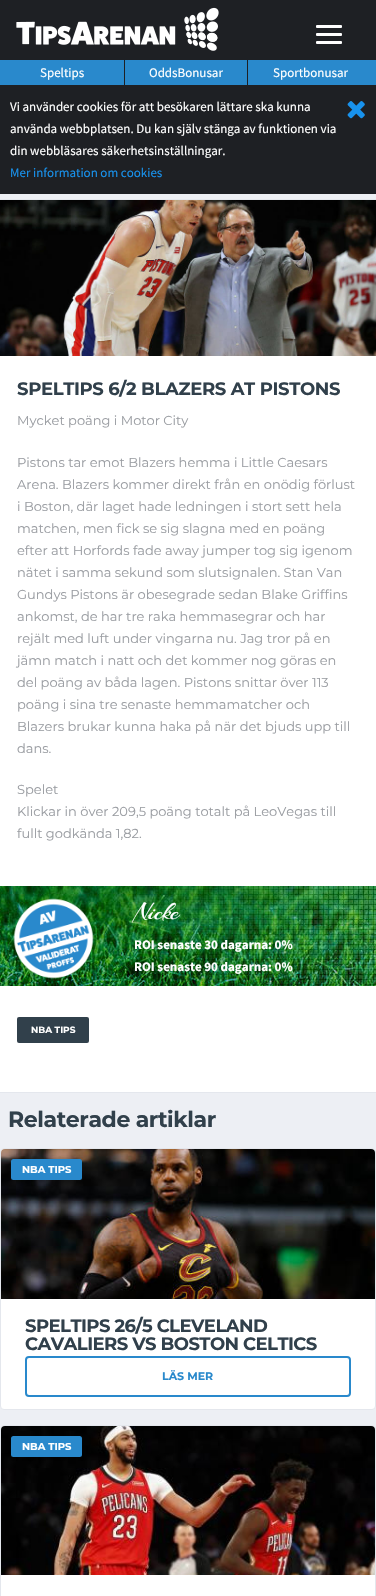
void draw(SkCanvas* canvas) {
  SkPaint paint;
  paint.setAntiAlias(true);
  auto face = [&](const char* family, int weight, float size, bool italic = false) {
    SkFontStyle style(weight, SkFontStyle::kNormal_Width,
      italic ? SkFontStyle::kItalic_Slant : SkFontStyle::kUpright_Slant);
    SkFont result(fontMgr->matchFamilyStyle(family, style), size);
    result.setSubpixel(true);
    return result;
  };
  auto writeSpaced = [&](const char* s, float x, float y, const SkFont& font, const SkPaint& ink, float letter, float word) {
    std::vector<SkGlyphID> glyphs(font.countText(s, strlen(s), SkTextEncoding::kUTF8));
    std::vector<float> xs(glyphs.size());
    font.textToGlyphs(s, strlen(s), SkTextEncoding::kUTF8, glyphs);
    font.getXPos(glyphs, xs, x);
    float extra = 0;
    for (size_t i = 0; i < glyphs.size(); i++) {
      xs[i] += extra;
      extra += letter + word * (glyphs[i] == font.unicharToGlyph(' '));
    }
    canvas->drawTextBlob(SkTextBlob::MakeFromPosHGlyphs(glyphs, xs, y, font), 0, 0, ink);
  };
  auto paste = [&](const char* path, float x, float y, float w, float h) {
    auto image = SkImages::DeferredFromEncodedData(SkData::MakeFromFileName(path));
    canvas->drawImageRect(image, SkRect::MakeXYWH(x, y, w, h), SkSamplingOptions());
  };
  canvas->clear(0xffedeff4);
  paint.setColor(0xff1e2024);
  canvas->drawRect(SkRect::MakeXYWH(0, 0, 376, 194), paint);
  paste("img/1.png", 16, 7, 203, 44);
  paint.setColor(0xffffffff);
  canvas->drawRoundRect(SkRect::MakeXYWH(316, 25, 26, 3), 1, 1, paint);
  canvas->drawRoundRect(SkRect::MakeXYWH(316, 33, 26, 3), 1, 1, paint);
  canvas->drawRoundRect(SkRect::MakeXYWH(316, 41, 26, 3), 1, 1, paint);
  {
    const struct { float x, y, w, h; SkColor color; } items[] = {
      {0, 60, 376, 25, 0xff2989cc},
      {247, 60, 1, 25, 0xff1e2024},
      {124, 60, 1, 25, 0xff1e2024},
    };
    for (auto [x, y, w, h, color] : items) {
      paint.setColor(color);
      canvas->drawRect(SkRect::MakeXYWH(x, y, w, h), paint);
    }
  }
  paste("img/2.png", 347, 101, 18, 18);
  paint.setColor(0xffffffff);
  canvas->drawRect(SkRect::MakeXYWH(0, 356, 376, 736), paint);
  paint.setStroke(true);
  paint.setStrokeWidth(1);
  paint.setColor(0xffe4e7ed);
  canvas->drawRect(SkRect::MakeXYWH(-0.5f, 199.5f, 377, 893), paint);
  paste("img/3.png", 0, 200, 376, 156);
  paste("img/4.png", 0, 886, 376, 100);
  paste("img/5.png", 13, 898, 81, 81);
  paint.setStroke(false);
  paint.setColor(0xff31404b);
  canvas->drawRoundRect(SkRect::MakeXYWH(17, 1017, 72, 26), 2, 2, paint);
  paint.setColor(0xffffffff);
  canvas->drawRoundRect(SkRect::MakeXYWH(0.5f, 1148.5f, 375, 261), 3.5f, 3.5f, paint);
  paint.setStroke(true);
  paint.setColor(0xffe4e7ed);
  canvas->drawRoundRect(SkRect::MakeXYWH(0.5f, 1148.5f, 375, 261), 3.5f, 3.5f, paint);
  paste("img/6.png", 1, 1149, 374, 150);
  paint.setStroke(false);
  paint.setColor(0xff2989cc);
  canvas->drawRoundRect(SkRect::MakeXYWH(11, 1159, 71, 21), 2.5f, 2.5f, paint);
  paint.setStroke(true);
  paint.setStrokeWidth(2);
  canvas->drawRoundRect(SkRect::MakeXYWH(26, 1357, 324, 39), 3, 3, paint);
  paint.setStroke(false);
  paint.setColor(0xffffffff);
  canvas->drawRoundRect(SkRect::MakeXYWH(0.5f, 1425.5f, 375, 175), 3.5f, 3.5f, paint);
  paint.setStroke(true);
  paint.setStrokeWidth(1);
  paint.setColor(0xffe4e7ed);
  canvas->drawRoundRect(SkRect::MakeXYWH(0.5f, 1425.5f, 375, 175), 3.5f, 3.5f, paint);
  paste("img/7.png", 1, 1426, 374, 149);
  paint.setStroke(false);
  paint.setColor(0xff2989cc);
  canvas->drawRoundRect(SkRect::MakeXYWH(11, 1436, 71, 21), 2.5f, 2.5f, paint);
  auto f0 = face("Source Sans Pro", 400, 13);
  paint.setColor(0xffffffff);
  {
    const struct { const char* s; float x, y; } items[] = {
      {"Speltips", 40, 77},
      {"OddsBonusar", 149, 77},
      {"Sportbonusar", 273, 77},
      {"Vi använder cookies för att besökaren lättare ska kunna", 10, 111},
      {"använda webbplatsen. Du kan själv stänga av funktionen via", 10, 133},
      {"din webbläsares säkerhetsinställningar.", 10, 155},
    };
    for (auto [s, x, y] : items) {
      canvas->drawString(s, x, y, f0, paint);
    }
  }
  paint.setColor(0xff1892ed);
  canvas->drawString("Mer information om cookies", 10, 177, f0, paint);
  auto f1 = face("Montserrat", 700, 18);
  paint.setColor(0xff31404b);
  writeSpaced("SPELTIPS 6/2 BLAZERS AT PISTONS", 17, 395, f1, paint, -0.35f, 0);
  auto f2 = face("Montserrat", 400, 13);
  paint.setColor(0xff9a9da2);
  {
    const struct { const char* s; float x, y; } items[] = {
      {"Mycket poäng i Motor City", 17, 425},
      {"Pistons tar emot Blazers hemma i Little Caesars", 17, 467},
      {"Arena. Blazers kommer direkt från en onödig förlust", 17, 489},
      {"i Boston, där laget hade ledningen i stort sett hela", 17, 511},
      {"matchen, men fick se sig slagna med en poäng", 17, 533},
      {"efter att Horfords fade away jumper tog sig igenom", 17, 555},
      {"nätet i samma sekund som slutsignalen. Stan Van", 17, 577},
      {"Gundys Pistons är obesegrade sedan Blake Griffins", 17, 599},
      {"ankomst, de har tre raka hemmasegrar och har", 17, 621},
      {"rejält med luft under vingarna nu. Jag tror på en", 17, 643},
      {"jämn match i natt och det kommer nog göras en", 17, 665},
      {"del poäng av båda lagen. Pistons snittar över 113", 17, 687},
      {"poäng i sina tre senaste hemmamatcher och", 17, 709},
      {"Blazers brukar kunna haka på när det bjuds upp till", 17, 731},
      {"dans.", 17, 753},
      {"Spelet", 17, 794},
      {"Klickar in över 209,5 poäng totalt på LeoVegas till", 17, 816},
      {"fullt godkända 1,82.", 17, 838},
    };
    for (auto [s, x, y] : items) {
      canvas->drawString(s, x, y, f2, paint);
    }
  }
  auto f3 = face("Arizonia", 400, 25);
  paint.setColor(0xffffffff);
  writeSpaced("Nicke", 134, 919, f3, paint, -0.5f, 0);
  auto f4 = face("Source Sans Pro", 700, 13);
  canvas->drawString("ROI senaste 30 dagarna: 0%", 134, 949, f4, paint);
  canvas->drawString("ROI senaste 90 dagarna: 0%", 134, 971, f4, paint);
  auto f5 = face("Montserrat", 700, 9);
  canvas->drawString("NBA TIPS", 31, 1033, f5, paint);
  auto f6 = face("Montserrat", 700, 22);
  paint.setColor(0xff31404b);
  writeSpaced("Relaterade artiklar", 8, 1127, f6, paint, -0.4f, 0);
  auto f7 = face("Montserrat", 700, 10);
  paint.setColor(0xffffffff);
  canvas->drawString("NBA TIPS", 22, 1173, f7, paint);
  paint.setColor(0xff31404b);
  writeSpaced("SPELTIPS 26/5 CLEVELAND", 25, 1332, f1, paint, -0.55f, 0);
  writeSpaced("CAVALIERS VS BOSTON CELTICS", 25, 1350, f1, paint, -0.55f, 0);
  auto f8 = face("Montserrat", 700, 11);
  paint.setColor(0xff2989cc);
  canvas->drawString("LÄS MER", 162, 1380, f8, paint);
  paint.setColor(0xffffffff);
  canvas->drawString("NBA TIPS", 22, 1450, f7, paint);
}
